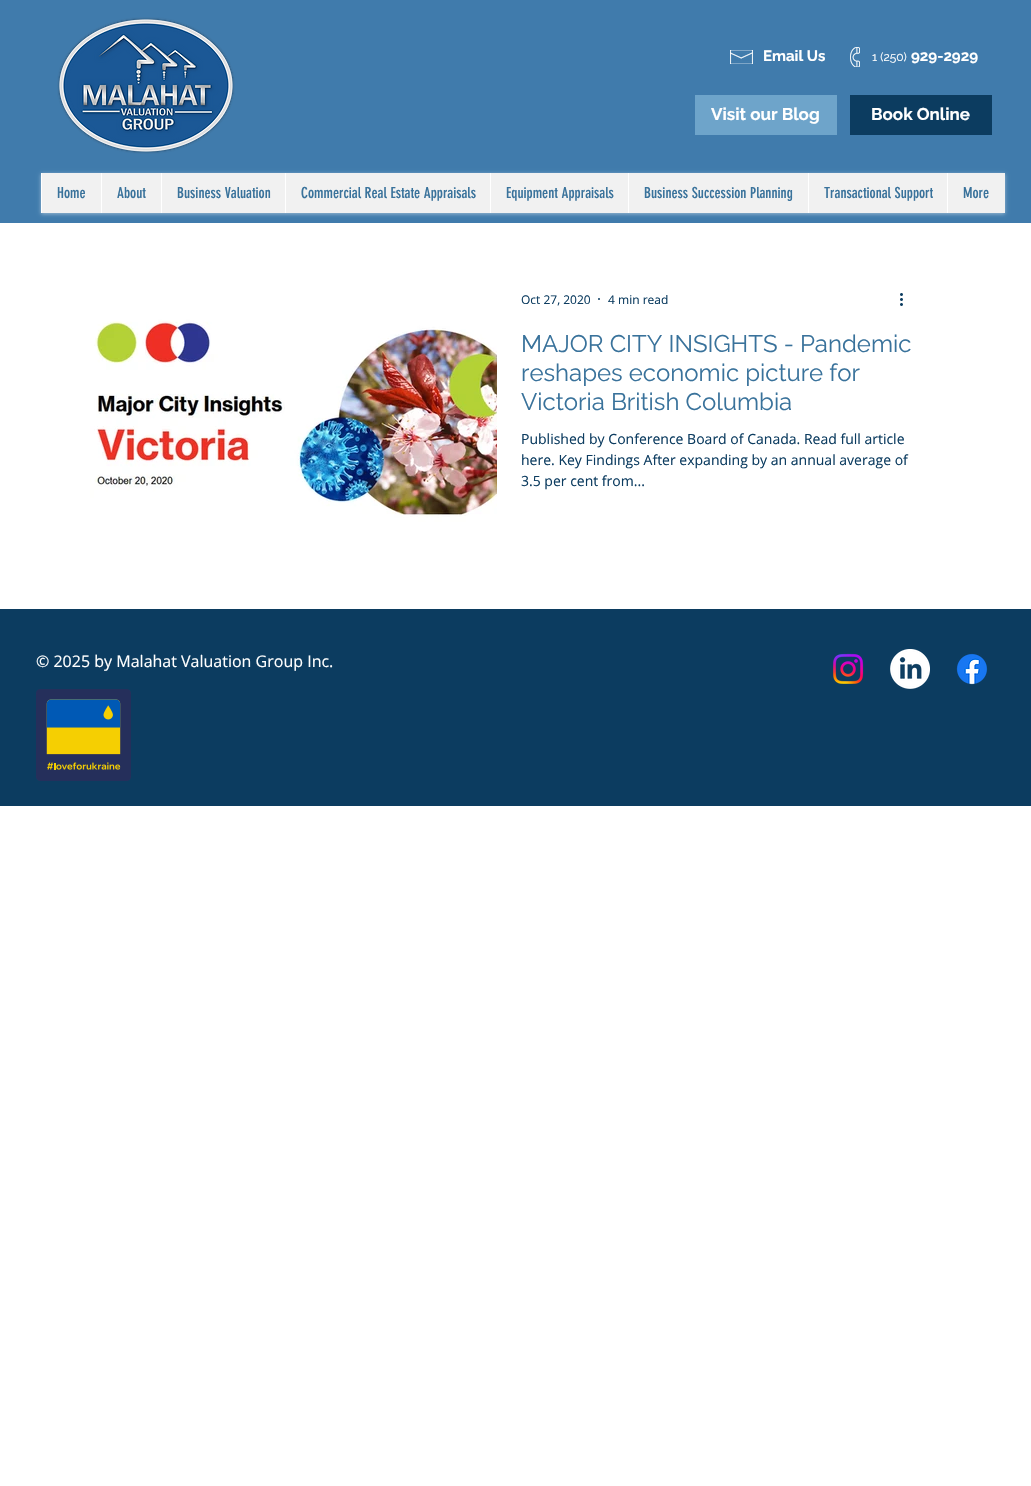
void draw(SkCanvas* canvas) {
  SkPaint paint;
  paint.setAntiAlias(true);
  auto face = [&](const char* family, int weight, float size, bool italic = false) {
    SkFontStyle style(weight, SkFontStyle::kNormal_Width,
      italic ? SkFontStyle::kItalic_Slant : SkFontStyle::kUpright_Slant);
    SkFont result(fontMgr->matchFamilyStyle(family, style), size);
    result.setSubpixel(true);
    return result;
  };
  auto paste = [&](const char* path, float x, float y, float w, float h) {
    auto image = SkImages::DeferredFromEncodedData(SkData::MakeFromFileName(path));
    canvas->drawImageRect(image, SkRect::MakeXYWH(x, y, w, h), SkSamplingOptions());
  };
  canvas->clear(0xffffffff);
  paint.setColor(0xff407bac);
  canvas->drawRect(SkRect::MakeXYWH(0, 0, 1031, 223), paint);
  paste("img/1.png", 57, 17, 178, 137);
  paste("img/2.png", 730, 50, 23, 14);
  paste("img/3.png", 850, 47, 10, 20);
  paint.setColor(0xff6ea4ca);
  canvas->drawRect(SkRect::MakeXYWH(695, 95, 142, 40), paint);
  paint.setColor(0xff0c3c60);
  canvas->drawRect(SkRect::MakeXYWH(850, 95, 142, 40), paint);
  paint.setColor(0xa1d1e0eb);
  paint.setMaskFilter(SkMaskFilter::MakeBlur(kNormal_SkBlurStyle, 2));
  canvas->drawRect(SkRect::MakeXYWH(41, 174, 964, 40), paint);
  paint.setMaskFilter(nullptr);
  {
    const struct { float x, y, w, h; SkColor color; } items[] = {
      {42, 173, 963, 40, 0xfff1f1f1},
      {41, 173, 1, 40, 0xffffffff},
      {101, 173, 1, 40, 0xffffffff},
      {161, 173, 1, 40, 0xffffffff},
      {285, 173, 1, 40, 0xffffffff},
      {490, 173, 1, 40, 0xffffffff},
      {628, 173, 1, 40, 0xffffffff},
      {808, 173, 1, 40, 0xffffffff},
      {947, 173, 1, 40, 0xffffffff},
    };
    for (auto [x, y, w, h, color] : items) {
      paint.setColor(color);
      canvas->drawRect(SkRect::MakeXYWH(x, y, w, h), paint);
    }
  }
  paste("img/4.png", 90, 273, 407, 290);
  paint.setColor(0xff0c3c60);
  canvas->drawCircle(599, 299, 1, paint);
  paste("img/5.png", 900, 293, 3, 13);
  canvas->drawRect(SkRect::MakeXYWH(0, 609, 1031, 197), paint);
  paste("img/6.png", 833, 653, 31, 31);
  paste("img/7.png", 890, 649, 40, 40);
  paste("img/8.png", 956, 653, 32, 32);
  paste("img/9.png", 36, 689, 95, 92);
  auto f0 = face("Raleway", 700, 15);
  paint.setColor(0xffffffff);
  canvas->drawString("Email Us", 763, 61, f0, paint);
  auto f1 = face("Raleway", 400, 12);
  canvas->drawString("1 (250)", 872, 61, f1, paint);
  canvas->drawString("929-2929", 911, 61, f0, paint);
  auto f2 = face("Raleway", 700, 17);
  canvas->drawString("Visit our Blog", 711, 120, f2, paint);
  canvas->drawString("Book Online", 871, 120, f2, paint);
  auto f3 = face("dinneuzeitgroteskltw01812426", 400, 15);
  paint.setColor(0xff39729b);
  {
    const struct { const char* s; float x, y; } items[] = {
      {"Home", 57, 198},
      {"About", 117, 198},
      {"Business Valuation", 177, 198},
      {"Commercial Real Estate Appraisals", 301, 198},
      {"Equipment Appraisals", 506, 198},
      {"Business Succession Planning", 644, 198},
      {"Transactional Support", 824, 198},
      {"More", 963, 198},
    };
    for (auto [s, x, y] : items) {
      canvas->drawString(s, x, y, f3, paint);
    }
  }
  auto f4 = face("Open Sans", 400, 12);
  paint.setColor(0xff0c3c60);
  canvas->drawString("Oct 27, 2020", 521, 304, f4, paint);
  canvas->drawString("4 min read", 608, 304, f4, paint);
  auto f5 = face("Raleway", 400, 24);
  paint.setColor(0xff39729b);
  {
    const struct { const char* s; float x, y; } items[] = {
      {"MAJOR CITY INSIGHTS - Pandemic", 521, 352},
      {"reshapes economic picture for", 521, 381},
      {"Victoria British Columbia", 521, 410},
    };
    for (auto [s, x, y] : items) {
      canvas->drawString(s, x, y, f5, paint);
    }
  }
  auto f6 = face("Open Sans", 400, 14);
  paint.setColor(0xff0c3c60);
  {
    const struct { const char* s; float x, y; } items[] = {
      {"Published by Conference Board of Canada. Read full article", 521, 444},
      {"here. Key Findings After expanding by an annual average of", 521, 465},
      {"3.5 per cent from...", 521, 486},
    };
    for (auto [s, x, y] : items) {
      canvas->drawString(s, x, y, f6, paint);
    }
  }
  auto f7 = face("Open Sans", 400, 16);
  paint.setColor(0xffffffff);
  canvas->drawString("© 2025 by Malahat Valuation Group Inc.", 36, 667, f7, paint);
}
